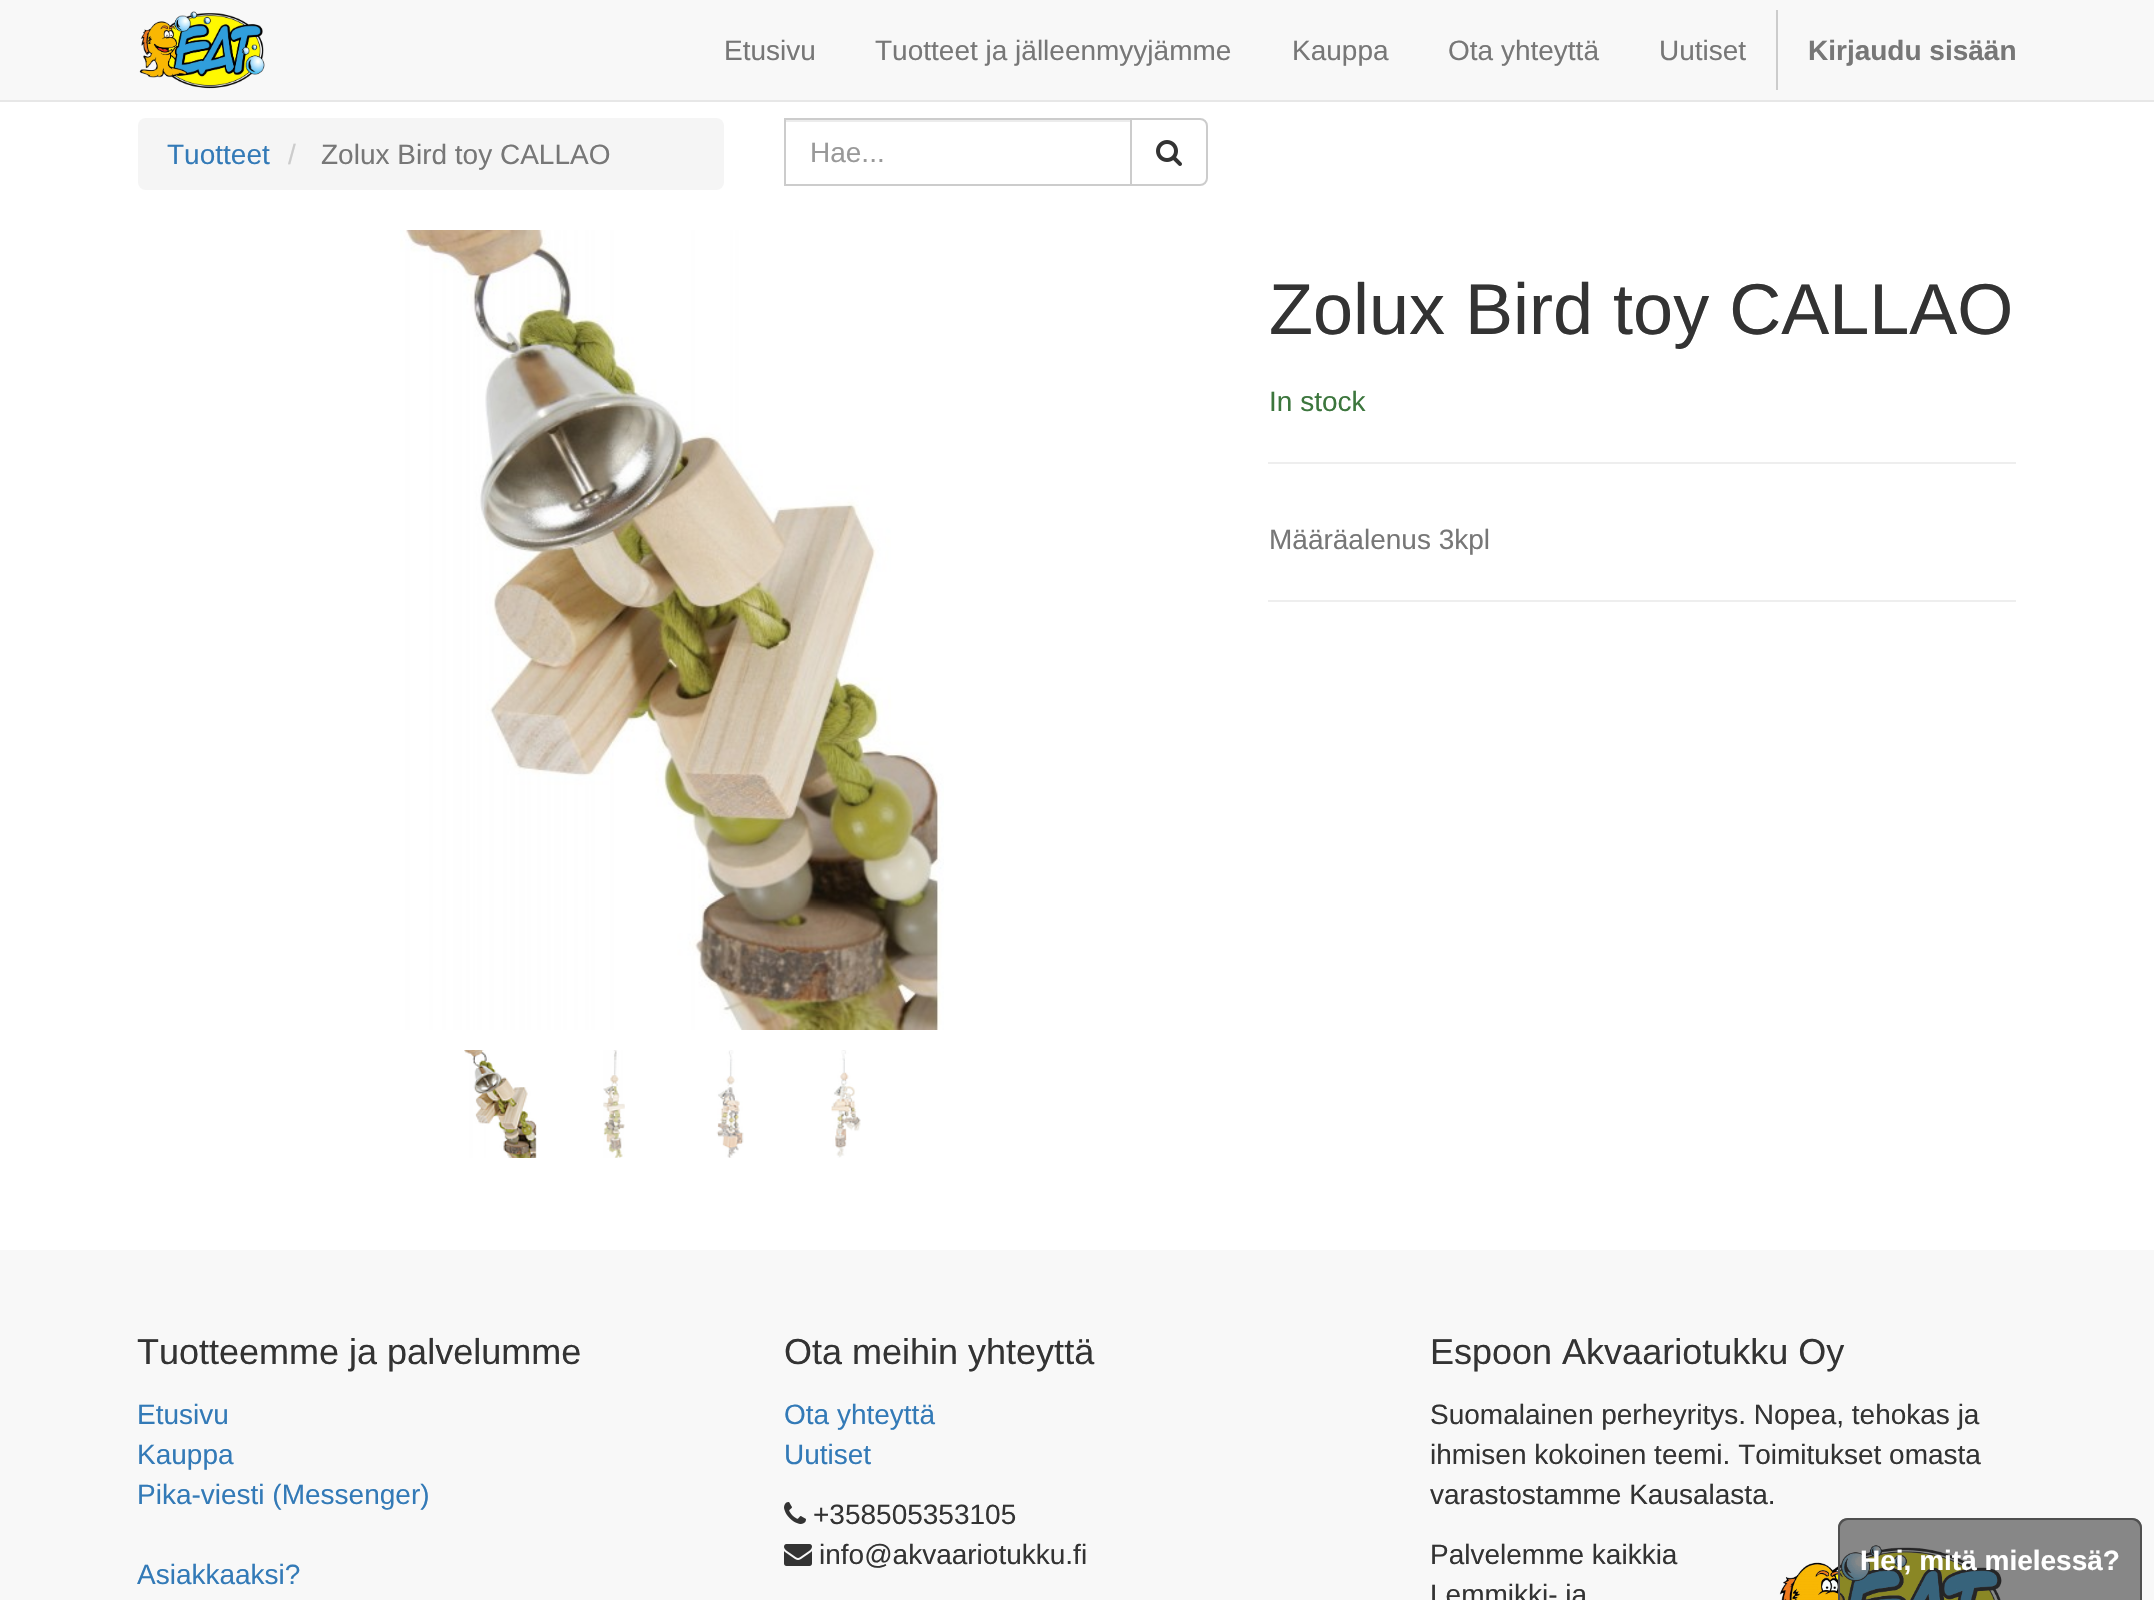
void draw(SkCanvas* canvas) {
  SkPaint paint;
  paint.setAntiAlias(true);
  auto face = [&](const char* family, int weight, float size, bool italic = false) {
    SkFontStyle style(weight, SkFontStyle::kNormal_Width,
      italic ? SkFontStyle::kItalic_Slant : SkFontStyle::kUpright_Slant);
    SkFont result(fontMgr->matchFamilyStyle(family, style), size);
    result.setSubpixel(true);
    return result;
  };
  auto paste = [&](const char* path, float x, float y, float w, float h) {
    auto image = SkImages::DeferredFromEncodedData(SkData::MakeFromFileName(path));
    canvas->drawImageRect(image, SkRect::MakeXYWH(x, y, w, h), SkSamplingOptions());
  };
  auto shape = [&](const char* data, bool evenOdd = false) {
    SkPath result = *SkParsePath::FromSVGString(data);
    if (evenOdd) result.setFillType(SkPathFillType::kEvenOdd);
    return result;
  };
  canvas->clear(0xffffffff);
  paint.setColor(0xfff8f8f8);
  canvas->drawRect(SkRect::MakeXYWH(0, 0, 2154, 100), paint);
  paint.setColor(0xffe7e7e7);
  canvas->drawRect(SkRect::MakeXYWH(0, 100, 2154, 2), paint);
  paste("img/1.png", 139, 11, 126, 78);
  paint.setColor(0xffcccccc);
  canvas->drawRect(SkRect::MakeXYWH(1776, 10, 2, 80), paint);
  paint.setColor(0xfff5f5f5);
  canvas->drawRoundRect(SkRect::MakeXYWH(138, 118, 586, 72), 8, 8, paint);
  paint.setColor(0xffececec);
  canvas->drawRect(SkRect::MakeXYWH(786, 120, 344, 2), paint);
  paint.setStroke(true);
  paint.setStrokeWidth(2);
  paint.setColor(0xffcccccc);
  canvas->drawRect(SkRect::MakeXYWH(785, 119, 346, 66), paint);
  paint.setStroke(false);
  paint.setColor(0xffffffff);
  canvas->drawPath(shape("M1131 119H1200C1204 119 1207 122 1207 126V178C1207 182 1204 185 1200 185H1131Z"), paint);
  paint.setStroke(true);
  paint.setColor(0xffcccccc);
  canvas->drawPath(shape("M1131 119H1200C1204 119 1207 122 1207 126V178C1207 182 1204 185 1200 185H1131Z"), paint);
  paste("img/2.png", 1156, 140, 26, 26);
  paste("img/3.png", 400, 230, 544, 800);
  paste("img/4.png", 464, 1050, 73, 108);
  paste("img/5.png", 603, 1050, 22, 108);
  paste("img/6.png", 716, 1050, 28, 108);
  paste("img/7.png", 831, 1050, 30, 108);
  paint.setStroke(false);
  {
    const struct { float x, y, w, h; SkColor color; } items[] = {
      {1268, 462, 748, 2, 0xffeeeeee},
      {1268, 600, 748, 2, 0xffeeeeee},
      {0, 1250, 2154, 350, 0xfff8f8f8},
    };
    for (auto [x, y, w, h, color] : items) {
      paint.setColor(color);
      canvas->drawRect(SkRect::MakeXYWH(x, y, w, h), paint);
    }
  }
  paste("img/8.png", 784, 1502, 22, 22);
  paste("img/9.png", 784, 1544, 28, 22);
  paste("img/10.png", 1779, 1545, 223, 55);
  paint.setColor(0x993c3c3c);
  canvas->drawPath(shape("M1848 1518H2132C2137.5 1518 2142 1522.5 2142 1528V1600H1838V1528C1838 1522.5 1842.5 1518 1848 1518Z"), paint);
  paint.setColor(0xff505050);
  canvas->drawPath(shape("M1848 1518H2132C2138 1518 2142 1522 2142 1528V1600H1838V1528C1838 1522 1842 1518 1848 1518ZM1848 1520H2132C2136 1520 2140 1524 2140 1528V1600H1840V1528C1840 1524 1844 1520 1848 1520Z", true), paint);
  auto f0 = face("Liberation Sans", 400, 28);
  paint.setColor(0xff777777);
  {
    const struct { const char* s; float x, y; } items[] = {
      {"Etusivu", 724, 60},
      {"Tuotteet ja jälleenmyyjämme", 875, 60},
      {"Kauppa", 1292, 60},
      {"Ota yhteyttä", 1448, 60},
      {"Uutiset", 1659, 60},
    };
    for (auto [s, x, y] : items) {
      canvas->drawString(s, x, y, f0, paint);
    }
  }
  auto f1 = face("Liberation Sans", 700, 28);
  canvas->drawString("Kirjaudu sisään", 1808, 60, f1, paint);
  paint.setColor(0xff337ab7);
  canvas->drawString("Tuotteet", 167, 164, f0, paint);
  paint.setColor(0xffcccccc);
  canvas->drawString("/", 288, 164, f0, paint);
  paint.setColor(0xff777777);
  canvas->drawString("Zolux Bird toy CALLAO", 321, 164, f0, paint);
  paint.setColor(0xff999999);
  canvas->drawString("Hae...", 810, 162, f0, paint);
  auto f2 = face("Liberation Sans", 400, 72);
  paint.setColor(0xff333333);
  canvas->drawString("Zolux Bird toy CALLAO", 1269, 334, f2, paint);
  paint.setColor(0xff3c763d);
  canvas->drawString("In stock", 1269, 411, f0, paint);
  paint.setColor(0xff777777);
  canvas->drawString("Määräalenus 3kpl", 1269, 549, f0, paint);
  auto f3 = face("Liberation Sans", 400, 36);
  paint.setColor(0xff333333);
  canvas->drawString("Tuotteemme ja palvelumme", 137, 1364, f3, paint);
  paint.setColor(0xff337ab7);
  {
    const struct { const char* s; float x, y; } items[] = {
      {"Etusivu", 137, 1424},
      {"Kauppa", 137, 1464},
      {"Pika-viesti (Messenger)", 137, 1504},
      {"Asiakkaaksi?", 137, 1584},
    };
    for (auto [s, x, y] : items) {
      canvas->drawString(s, x, y, f0, paint);
    }
  }
  paint.setColor(0xff333333);
  canvas->drawString("Ota meihin yhteyttä", 784, 1364, f3, paint);
  paint.setColor(0xff337ab7);
  canvas->drawString("Ota yhteyttä", 784, 1424, f0, paint);
  canvas->drawString("Uutiset", 784, 1464, f0, paint);
  paint.setColor(0xff333333);
  canvas->drawString("+358505353105", 813, 1524, f0, paint);
  canvas->drawString("info@akvaariotukku.fi", 819, 1564, f0, paint);
  canvas->drawString("Espoon Akvaariotukku Oy", 1430, 1364, f3, paint);
  {
    const struct { const char* s; float x, y; } items[] = {
      {"Suomalainen perheyritys. Nopea, tehokas ja", 1430, 1424},
      {"ihmisen kokoinen teemi. Toimitukset omasta", 1430, 1464},
      {"varastostamme Kausalasta.", 1430, 1504},
      {"Palvelemme kaikkia", 1430, 1564},
      {"Lemmikki- ja", 1430, 1604},
    };
    for (auto [s, x, y] : items) {
      canvas->drawString(s, x, y, f0, paint);
    }
  }
  paint.setColor(0xffffffff);
  canvas->drawString("Hei, mitä mielessä?", 1860, 1570, f1, paint);
}
